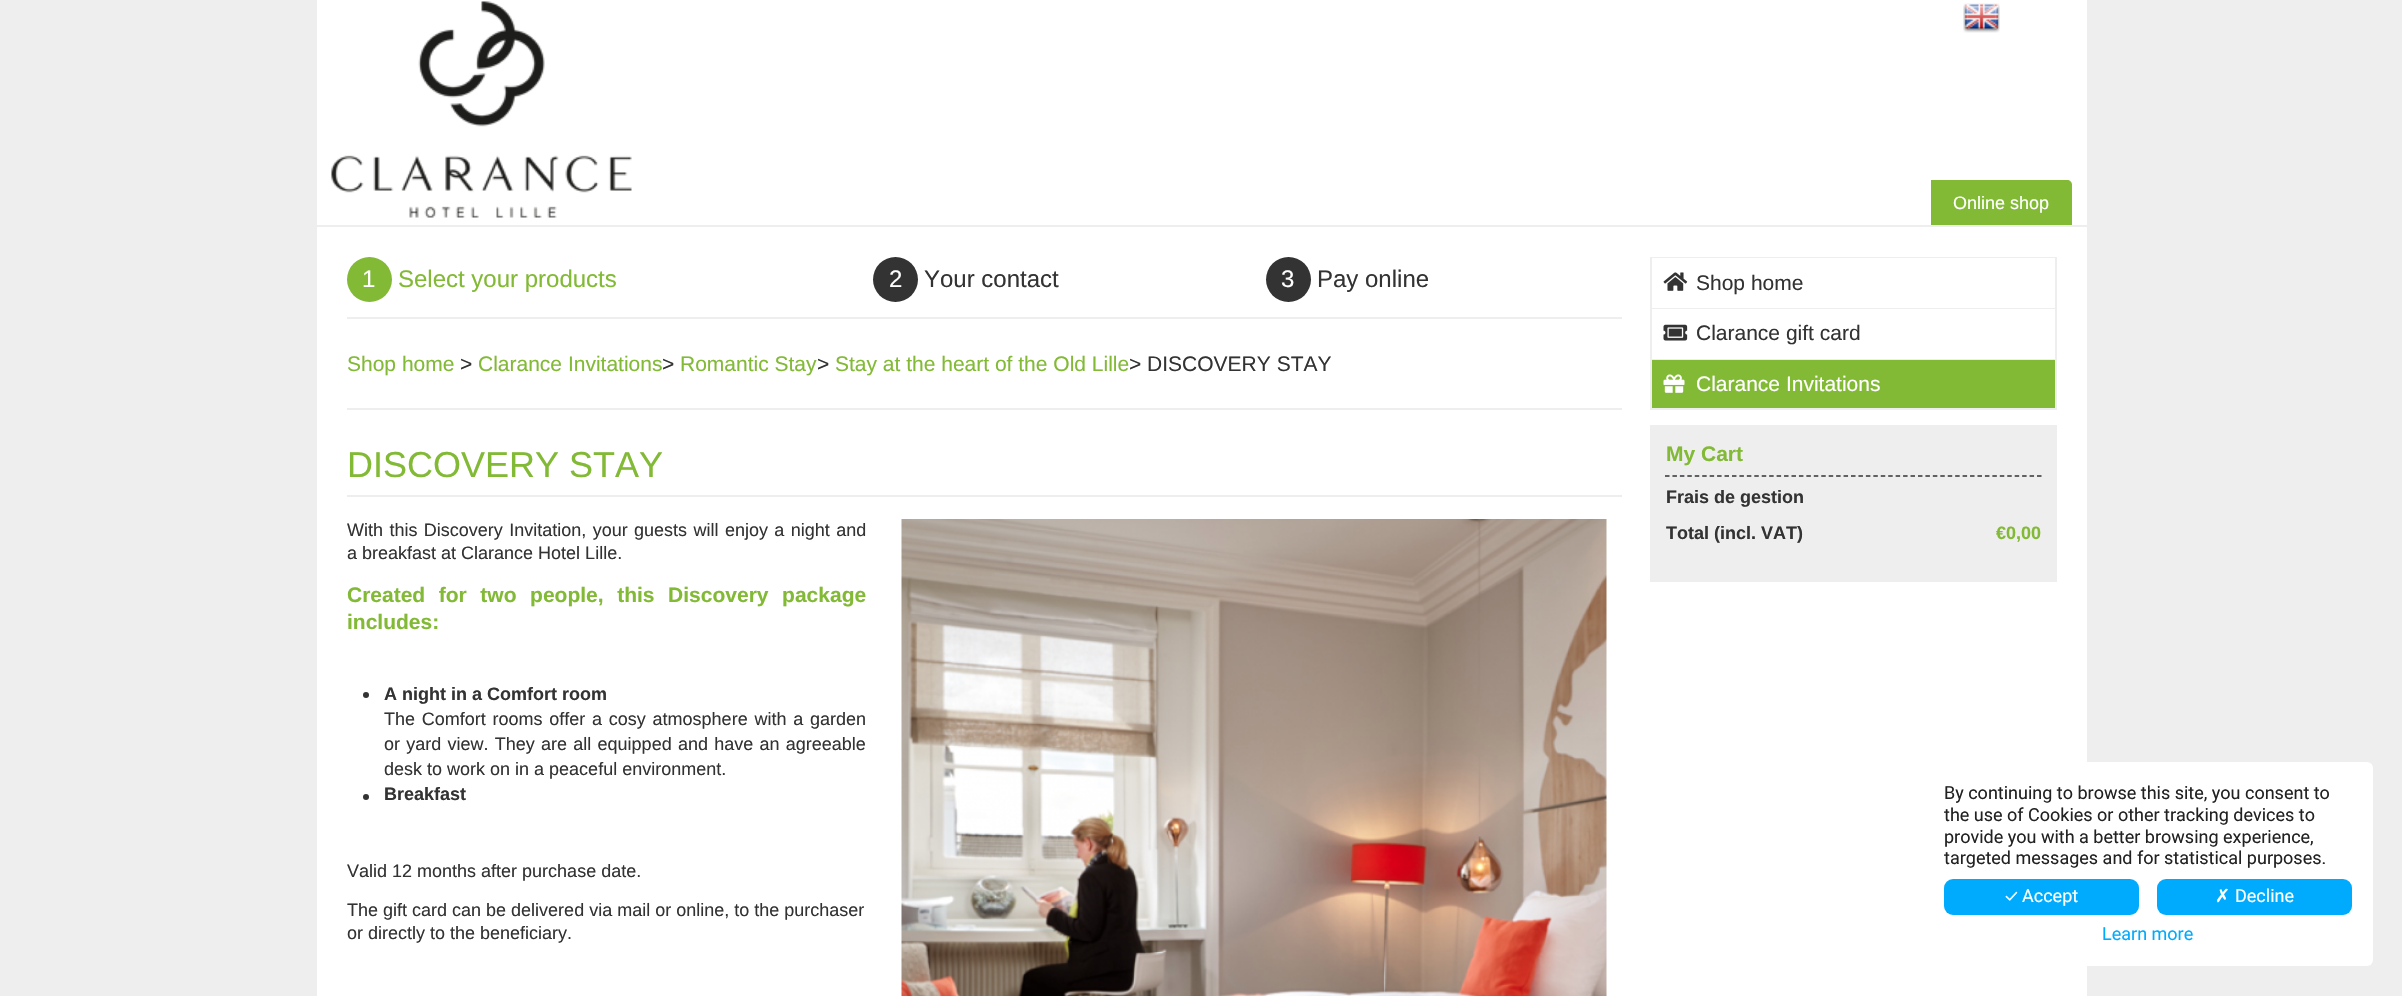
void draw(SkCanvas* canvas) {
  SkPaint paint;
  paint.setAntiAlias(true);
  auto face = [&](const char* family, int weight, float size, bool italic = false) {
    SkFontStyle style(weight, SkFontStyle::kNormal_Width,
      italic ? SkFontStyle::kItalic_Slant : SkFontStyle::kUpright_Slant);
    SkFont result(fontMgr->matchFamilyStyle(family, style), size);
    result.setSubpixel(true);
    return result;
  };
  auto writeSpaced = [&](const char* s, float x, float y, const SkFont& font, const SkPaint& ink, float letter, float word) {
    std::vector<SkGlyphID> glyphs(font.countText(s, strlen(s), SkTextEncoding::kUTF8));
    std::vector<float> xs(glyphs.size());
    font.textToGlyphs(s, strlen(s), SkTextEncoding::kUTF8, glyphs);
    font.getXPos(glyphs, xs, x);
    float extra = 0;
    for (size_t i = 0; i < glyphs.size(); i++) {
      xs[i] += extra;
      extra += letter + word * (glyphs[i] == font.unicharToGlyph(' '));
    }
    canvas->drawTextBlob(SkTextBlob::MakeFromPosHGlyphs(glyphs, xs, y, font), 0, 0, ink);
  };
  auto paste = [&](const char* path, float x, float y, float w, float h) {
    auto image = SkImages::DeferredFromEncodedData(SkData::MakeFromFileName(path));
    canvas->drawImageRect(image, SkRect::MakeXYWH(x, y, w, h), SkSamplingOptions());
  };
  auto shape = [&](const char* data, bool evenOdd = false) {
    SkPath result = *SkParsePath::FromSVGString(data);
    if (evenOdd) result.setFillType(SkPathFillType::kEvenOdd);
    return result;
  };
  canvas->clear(0xffeeeeee);
  paint.setColor(0xffffffff);
  canvas->drawRect(SkRect::MakeXYWH(317, 0, 1770, 225), paint);
  paste("img/1.png", 331, 1, 301, 217);
  paste("img/2.png", 1963, 3, 37, 30);
  paint.setColor(0xff82b935);
  canvas->drawPath(shape("M1931 180H2067C2070 180 2072 182 2072 185V225H1931Z"), paint);
  paint.setColor(0xffffffff);
  canvas->drawRect(SkRect::MakeXYWH(317, 227, 1770, 769), paint);
  paint.setColor(0xffeeeeee);
  canvas->drawRect(SkRect::MakeXYWH(347, 317, 1275, 2), paint);
  paint.setColor(0xff82b935);
  canvas->drawCircle(369.5f, 279.5f, 22.5f, paint);
  paint.setColor(0xff333333);
  canvas->drawCircle(895.5f, 279.5f, 22.5f, paint);
  canvas->drawCircle(1288.5f, 279.5f, 22.5f, paint);
  paint.setColor(0xffeeeeee);
  canvas->drawRect(SkRect::MakeXYWH(347, 408, 1275, 2), paint);
  canvas->drawRect(SkRect::MakeXYWH(347, 495, 1275, 2), paint);
  paint.setColor(0xff333333);
  canvas->drawCircle(366, 695, 3, paint);
  canvas->drawCircle(366, 797, 3, paint);
  paste("img/3.png", 901, 519, 706, 477);
  {
    const struct { float x, y, w, h; SkColor color; } items[] = {
      {1650, 408, 407, 2, 0xffeeeeee},
      {1650, 257, 407, 1, 0xffeeeeee},
      {2055, 257, 2, 51, 0xffeeeeee},
      {1650, 257, 2, 51, 0xffeeeeee},
    };
    for (auto [x, y, w, h, color] : items) {
      paint.setColor(color);
      canvas->drawRect(SkRect::MakeXYWH(x, y, w, h), paint);
    }
  }
  paste("img/4.png", 1663, 272, 25, 19);
  {
    const struct { float x, y, w, h; SkColor color; } items[] = {
      {1650, 308, 407, 1, 0xffeeeeee},
      {2055, 308, 2, 51, 0xffeeeeee},
      {1650, 308, 2, 51, 0xffeeeeee},
    };
    for (auto [x, y, w, h, color] : items) {
      paint.setColor(color);
      canvas->drawRect(SkRect::MakeXYWH(x, y, w, h), paint);
    }
  }
  paste("img/5.png", 1663, 324, 25, 17);
  {
    const struct { float x, y, w, h; SkColor color; } items[] = {
      {1650, 359, 407, 1, 0xffeeeeee},
      {2055, 359, 2, 49, 0xffeeeeee},
      {1650, 359, 2, 49, 0xffeeeeee},
      {1652, 360, 403, 48, 0xff82b935},
    };
    for (auto [x, y, w, h, color] : items) {
      paint.setColor(color);
      canvas->drawRect(SkRect::MakeXYWH(x, y, w, h), paint);
    }
  }
  paste("img/6.png", 1663, 374, 22, 19);
  paint.setColor(0xffeeeeee);
  canvas->drawRect(SkRect::MakeXYWH(1650, 425, 407, 157), paint);
  paint.setStroke(true);
  paint.setStrokeWidth(1.5f);
  paint.setColor(0xff333333);
  paint.setPathEffect(SkDashPathEffect::Make({{4.5f, 2.94f}}, 0));
  canvas->drawPath(shape("M1665 476H2041.5"), paint);
  paint.setPathEffect(nullptr);
  paint.setStroke(false);
  paint.setColor(0xffffffff);
  canvas->drawRoundRect(SkRect::MakeXYWH(1923, 762, 450, 204), 6, 6, paint);
  paint.setColor(0xff00abfd);
  canvas->drawRoundRect(SkRect::MakeXYWH(1944, 879, 195, 36), 9, 9, paint);
  canvas->drawRoundRect(SkRect::MakeXYWH(2157, 879, 195, 36), 9, 9, paint);
  auto f0 = face("Liberation Sans", 400, 18);
  paint.setColor(0xffffffff);
  canvas->drawString("Online shop", 1953, 209, f0, paint);
  auto f1 = face("Liberation Sans", 400, 24);
  canvas->drawString("1", 362, 287, f1, paint);
  paint.setColor(0xff82b935);
  canvas->drawString("Select your products", 398, 287, f1, paint);
  paint.setColor(0xffffffff);
  canvas->drawString("2", 889, 287, f1, paint);
  paint.setColor(0xff333333);
  canvas->drawString("Your contact", 924, 287, f1, paint);
  paint.setColor(0xffffffff);
  canvas->drawString("3", 1281, 287, f1, paint);
  paint.setColor(0xff333333);
  canvas->drawString("Pay online", 1317, 287, f1, paint);
  auto f2 = face("Liberation Sans", 400, 21);
  paint.setColor(0xff82b935);
  canvas->drawString("Shop home", 347, 371, f2, paint);
  paint.setColor(0xff333333);
  canvas->drawString(">", 460, 371, f2, paint);
  paint.setColor(0xff82b935);
  canvas->drawString("Clarance Invitations", 478, 371, f2, paint);
  paint.setColor(0xff333333);
  canvas->drawString(">", 662, 371, f2, paint);
  paint.setColor(0xff82b935);
  canvas->drawString("Romantic Stay", 680, 371, f2, paint);
  paint.setColor(0xff333333);
  canvas->drawString(">", 817, 371, f2, paint);
  paint.setColor(0xff82b935);
  canvas->drawString("Stay at the heart of the Old Lille", 835, 371, f2, paint);
  paint.setColor(0xff333333);
  canvas->drawString("> DISCOVERY STAY", 1129, 371, f2, paint);
  auto f3 = face("Liberation Sans", 400, 36);
  paint.setColor(0xff82b935);
  canvas->drawString("DISCOVERY STAY", 347, 477, f3, paint);
  paint.setColor(0xff333333);
  writeSpaced("With this Discovery Invitation, your guests will enjoy a night and", 347, 536, f0, paint, 0, 1.4f);
  canvas->drawString("a breakfast at Clarance Hotel Lille.", 347, 559, f0, paint);
  auto f4 = face("Liberation Sans", 700, 21);
  paint.setColor(0xff82b935);
  writeSpaced("Created for two people, this Discovery package", 347, 602, f4, paint, 0, 7.75f);
  canvas->drawString("includes:", 347, 629, f4, paint);
  auto f5 = face("Liberation Sans", 700, 18);
  paint.setColor(0xff333333);
  canvas->drawString("A night in a Comfort room", 384, 700, f5, paint);
  writeSpaced("The Comfort rooms offer a cosy atmosphere with a garden", 384, 725, f0, paint, 0, 1.75f);
  writeSpaced("or yard view. They are all equipped and have an agreeable", 384, 750, f0, paint, 0, 1.25f);
  canvas->drawString("desk to work on in a peaceful environment.", 384, 775, f0, paint);
  canvas->drawString("Breakfast", 384, 800, f5, paint);
  {
    const struct { const char* s; float x, y; } items[] = {
      {"Valid 12 months after purchase date.", 347, 877},
      {"The gift card can be delivered via mail or online, to the purchaser", 347, 916},
      {"or directly to the beneficiary.", 347, 939},
    };
    for (auto [s, x, y] : items) {
      canvas->drawString(s, x, y, f0, paint);
    }
  }
  canvas->drawString("Shop home", 1696, 290, f2, paint);
  canvas->drawString("Clarance gift card", 1696, 340, f2, paint);
  paint.setColor(0xffffffff);
  canvas->drawString("Clarance Invitations", 1696, 391, f2, paint);
  paint.setColor(0xff82b935);
  canvas->drawString("My Cart", 1666, 461, f4, paint);
  paint.setColor(0xff333333);
  canvas->drawString("Frais de gestion", 1666, 503, f5, paint);
  canvas->drawString("Total (incl. VAT)", 1666, 539, f5, paint);
  paint.setColor(0xff82b935);
  canvas->drawString("€0,00", 1996, 539, f5, paint);
  auto f6 = face("Roboto", 400, 18);
  paint.setColor(0xff222222);
  {
    const struct { const char* s; float x, y; } items[] = {
      {"By continuing to browse this site, you consent to", 1944, 799},
      {"the use of Cookies or other tracking devices to", 1944, 821},
      {"provide you with a better browsing experience,", 1944, 843},
      {"targeted messages and for statistical purposes.", 1944, 864},
    };
    for (auto [s, x, y] : items) {
      canvas->drawString(s, x, y, f6, paint);
    }
  }
  auto f7 = face("Ubuntu", 400, 18);
  paint.setColor(0xffffffff);
  canvas->drawString("✓", 2005, 902, f7, paint);
  canvas->drawString("Accept", 2022, 902, f6, paint);
  auto f8 = face("DejaVu Sans", 400, 18);
  canvas->drawString("✗", 2215, 902, f8, paint);
  canvas->drawString("Decline", 2235, 902, f6, paint);
  paint.setColor(0xff00abfd);
  canvas->drawString("Learn more", 2102, 940, f6, paint);
}
